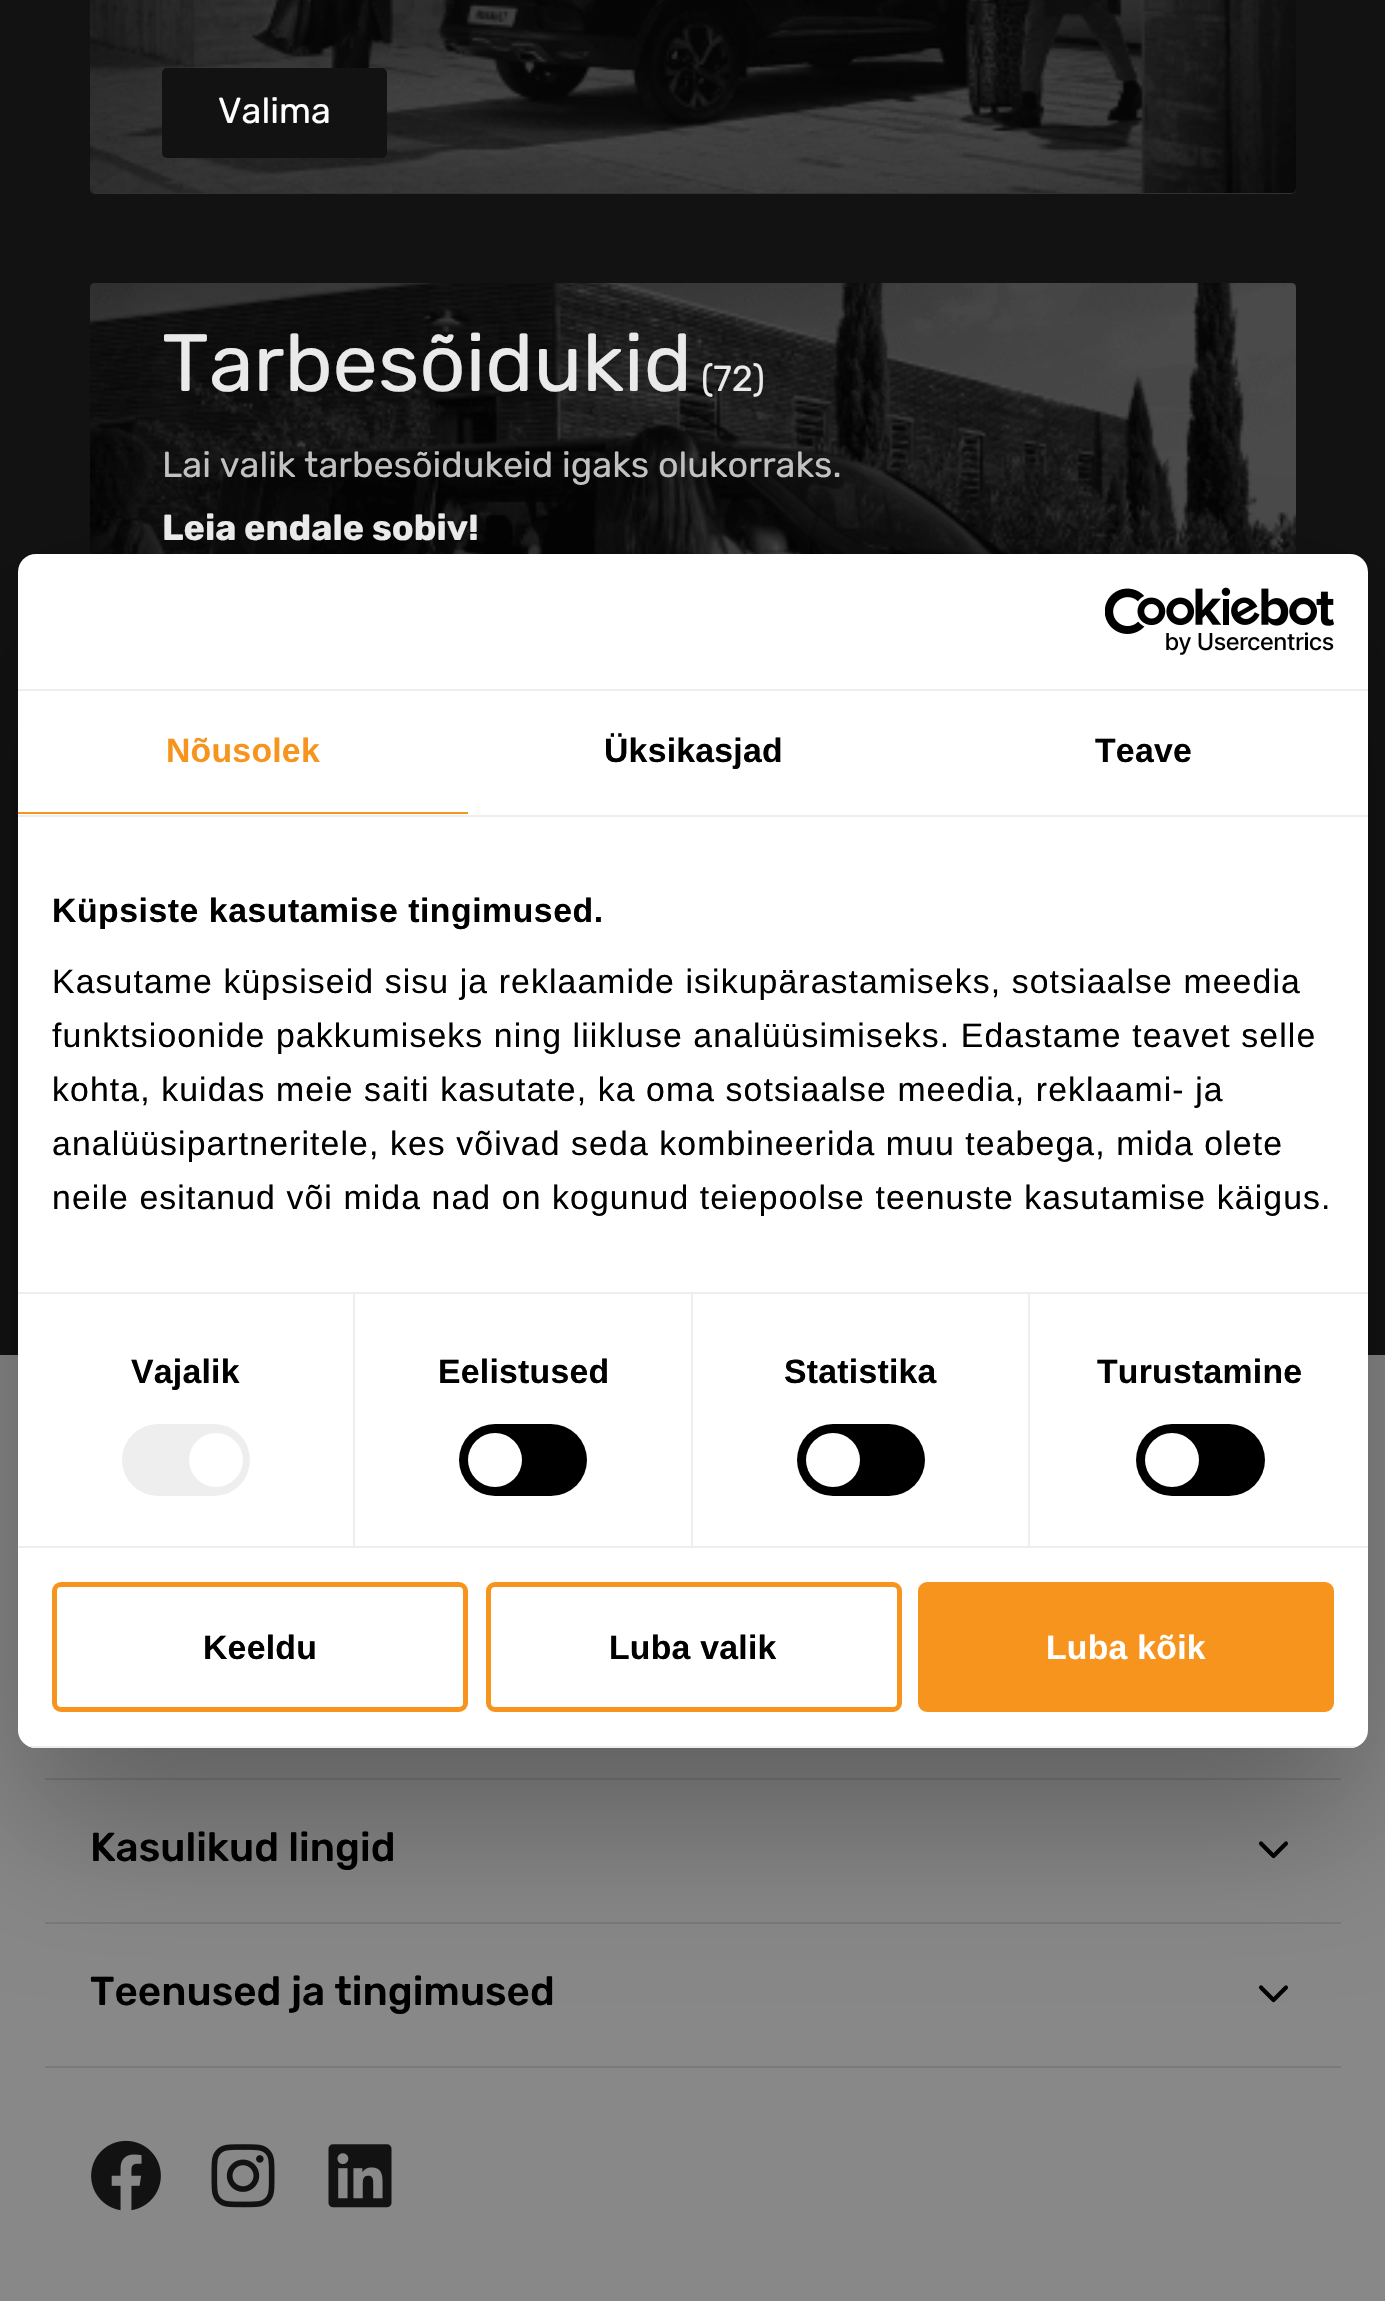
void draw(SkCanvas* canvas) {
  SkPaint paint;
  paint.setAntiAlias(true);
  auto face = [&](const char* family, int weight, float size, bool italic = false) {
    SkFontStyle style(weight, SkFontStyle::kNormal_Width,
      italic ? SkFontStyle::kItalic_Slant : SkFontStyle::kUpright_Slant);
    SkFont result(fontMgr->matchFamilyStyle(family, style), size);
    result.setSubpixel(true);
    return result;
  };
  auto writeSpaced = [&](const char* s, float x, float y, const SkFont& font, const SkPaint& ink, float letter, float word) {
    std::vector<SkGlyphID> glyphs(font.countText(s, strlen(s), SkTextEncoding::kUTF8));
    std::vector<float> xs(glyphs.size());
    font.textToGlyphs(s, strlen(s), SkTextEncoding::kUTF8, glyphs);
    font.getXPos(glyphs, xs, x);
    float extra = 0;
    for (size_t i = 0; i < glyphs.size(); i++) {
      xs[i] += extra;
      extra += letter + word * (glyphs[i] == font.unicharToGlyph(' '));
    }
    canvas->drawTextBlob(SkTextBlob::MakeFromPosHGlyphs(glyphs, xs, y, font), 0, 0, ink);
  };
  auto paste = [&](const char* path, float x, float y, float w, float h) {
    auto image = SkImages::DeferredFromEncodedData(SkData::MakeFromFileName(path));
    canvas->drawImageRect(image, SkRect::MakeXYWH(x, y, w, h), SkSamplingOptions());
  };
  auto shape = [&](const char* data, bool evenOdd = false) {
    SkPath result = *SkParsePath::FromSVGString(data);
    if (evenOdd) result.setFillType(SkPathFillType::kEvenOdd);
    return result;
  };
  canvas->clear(0xff121212);
  paint.setColor(0xff313131);
  canvas->drawRoundRect(SkRect::MakeXYWH(90, -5, 1206, 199), 5, 5, paint);
  paste("img/1.png", 90, 0, 1206, 193);
  paint.setColor(0xff121212);
  canvas->drawRoundRect(SkRect::MakeXYWH(163, 69, 223, 88), 4, 4, paint);
  paint.setStroke(true);
  paint.setStrokeWidth(2);
  canvas->drawRoundRect(SkRect::MakeXYWH(163, 69, 223, 88), 4, 4, paint);
  paste("img/2.png", 90, 283, 1206, 271);
  paint.setStroke(false);
  {
    const struct { float x, y, w, h; SkColor color; } items[] = {
      {0, 1355, 1385, 946, 0xff888888},
      {45, 1778, 1296, 2, 0xff7a7a7a},
      {45, 1922, 1296, 2, 0xff7a7a7a},
    };
    for (auto [x, y, w, h, color] : items) {
      paint.setColor(color);
      canvas->drawRect(SkRect::MakeXYWH(x, y, w, h), paint);
    }
  }
  paint.setStroke(true);
  paint.setStrokeWidth(4.2f);
  paint.setStrokeCap(SkPaint::kRound_Cap);
  paint.setStrokeJoin(SkPaint::kRound_Join);
  paint.setColor(0xff000000);
  canvas->drawPath(shape("M1286 1843.5L1273.5 1856L1261 1843.5"), paint);
  paint.setStroke(false);
  paint.setColor(0xff7a7a7a);
  canvas->drawRect(SkRect::MakeXYWH(45, 2066, 1296, 2), paint);
  paint.setStroke(true);
  paint.setColor(0xff000000);
  canvas->drawPath(shape("M1286 1987.5L1273.5 2000L1261 1987.5"), paint);
  paste("img/3.png", 91, 2140, 70, 71);
  paste("img/4.png", 211, 2144, 64, 64);
  paste("img/5.png", 328, 2144, 64, 64);
  paint.setStroke(false);
  paint.setColor(0x4d000000);
  paint.setMaskFilter(SkMaskFilter::MakeBlur(kNormal_SkBlurStyle, 76.5f));
  canvas->drawRoundRect(SkRect::MakeXYWH(18, 626, 1350, 1194), 18, 18, paint);
  paint.setMaskFilter(nullptr);
  paint.setColor(0xffffffff);
  canvas->drawRoundRect(SkRect::MakeXYWH(18, 554, 1350, 1194), 18, 18, paint);
  paint.setColor(0xffeeeeee);
  canvas->drawRect(SkRect::MakeXYWH(18, 689, 1350, 2), paint);
  paste("img/6.png", 1105, 587, 229, 68);
  {
    const struct { float x, y, w, h; SkColor color; } items[] = {
      {18, 815, 1350, 2, 0xffeeeeee},
      {18, 812, 450, 2, 0xfff7941e},
      {18, 1292, 1350, 2, 0xffeeeeee},
      {18, 1546, 1350, 2, 0xffeeeeee},
      {353, 1294, 2, 252, 0xffeeeeee},
    };
    for (auto [x, y, w, h, color] : items) {
      paint.setColor(color);
      canvas->drawRect(SkRect::MakeXYWH(x, y, w, h), paint);
    }
  }
  canvas->drawRoundRect(SkRect::MakeXYWH(122, 1424, 128, 72), 36, 36, paint);
  paint.setColor(0xffffffff);
  canvas->drawCircle(216, 1460, 27, paint);
  paint.setColor(0xffeeeeee);
  canvas->drawRect(SkRect::MakeXYWH(691, 1294, 2, 252), paint);
  paint.setColor(0xff000000);
  canvas->drawRoundRect(SkRect::MakeXYWH(459, 1424, 128, 72), 36, 36, paint);
  paint.setColor(0xffffffff);
  canvas->drawCircle(495, 1460, 27, paint);
  paint.setColor(0xffeeeeee);
  canvas->drawRect(SkRect::MakeXYWH(1028, 1294, 2, 252), paint);
  paint.setColor(0xff000000);
  canvas->drawRoundRect(SkRect::MakeXYWH(797, 1424, 128, 72), 36, 36, paint);
  paint.setColor(0xffffffff);
  canvas->drawCircle(833, 1460, 27, paint);
  paint.setColor(0xff000000);
  canvas->drawRoundRect(SkRect::MakeXYWH(1136, 1424, 129, 72), 36, 36, paint);
  paint.setColor(0xffffffff);
  canvas->drawCircle(1172, 1460, 27, paint);
  canvas->save();
  canvas->clipPath(shape("M36 554H1350C1360 554 1368 562 1368 572V1730C1368 1740 1360 1748 1350 1748H36C26 1748 18 1740 18 1730V572C18 562 26 554 36 554Z"), true);
  paint.setColor(0xffeeeeee);
  canvas->drawRect(SkRect::MakeXYWH(28, 1746, 1330, 2), paint);
  canvas->restore();
  paint.setStroke(true);
  paint.setStrokeWidth(5);
  paint.setStrokeCap(SkPaint::kButt_Cap);
  paint.setStrokeJoin(SkPaint::kMiter_Join);
  paint.setColor(0xfff7941e);
  canvas->drawRoundRect(SkRect::MakeXYWH(54.5f, 1584.5f, 411, 125), 6.5f, 6.5f, paint);
  canvas->drawRoundRect(SkRect::MakeXYWH(488.5f, 1584.5f, 411, 125), 6.5f, 6.5f, paint);
  paint.setStroke(false);
  canvas->drawRoundRect(SkRect::MakeXYWH(920.5f, 1584.5f, 411, 125), 6.5f, 6.5f, paint);
  paint.setStroke(true);
  canvas->drawRoundRect(SkRect::MakeXYWH(920.5f, 1584.5f, 411, 125), 6.5f, 6.5f, paint);
  auto f0 = face("Rubik", 400, 36);
  paint.setStroke(false);
  paint.setColor(0xffffffff);
  canvas->drawString("Valima", 218, 123, f0, paint);
  auto f1 = face("Rubik", 400, 81);
  paint.setColor(0xffeaeaea);
  canvas->drawString("Tarbesõidukid", 162, 391, f1, paint);
  canvas->drawString("(72)", 701, 391, f0, paint);
  paint.setColor(0xffc1c1c1);
  canvas->drawString("Lai valik tarbesõidukeid igaks olukorraks.", 162, 477, f0, paint);
  auto f2 = face("Rubik", 700, 36);
  paint.setColor(0xffeaeaea);
  canvas->drawString("Leia endale sobiv!", 162, 540, f2, paint);
  auto f3 = face("Rubik", 500, 40.5f);
  paint.setColor(0xff000000);
  canvas->drawString("Kasulikud lingid", 90, 1861, f3, paint);
  canvas->drawString("Teenused ja tingimused", 90, 2005, f3, paint);
  auto f4 = face("Liberation Sans", 700, 33.75f);
  paint.setColor(0xfff7941e);
  writeSpaced("Nõusolek", 166, 762, f4, paint, 0.25f, 0);
  paint.setColor(0xff000000);
  writeSpaced("Üksikasjad", 604, 762, f4, paint, 0.25f, 0);
  writeSpaced("Teave", 1095, 762, f4, paint, 0.25f, 0);
  writeSpaced("Küpsiste kasutamise tingimused.", 52, 922, f4, paint, 0.55f, 0);
  auto f5 = face("Liberation Sans", 400, 33.75f);
  {
    const struct { const char* s; float x, y; } items[] = {
      {"Kasutame küpsiseid sisu ja reklaamide isikupärastamiseks, sotsiaalse meedia", 52, 993},
      {"funktsioonide pakkumiseks ning liikluse analüüsimiseks. Edastame teavet selle", 52, 1047},
      {"kohta, kuidas meie saiti kasutate, ka oma sotsiaalse meedia, reklaami- ja", 52, 1101},
      {"analüüsipartneritele, kes võivad seda kombineerida muu teabega, mida olete", 52, 1155},
      {"neile esitanud või mida nad on kogunud teiepoolse teenuste kasutamise käigus.", 52, 1209},
    };
    for (auto [s, x, y] : items) {
      writeSpaced(s, x, y, f5, paint, 1.12f, 0);
    }
  }
  {
    const struct { const char* s; float x, y; } items[] = {
      {"Vajalik", 131, 1383},
      {"Eelistused", 438, 1383},
      {"Statistika", 784, 1383},
      {"Turustamine", 1097, 1383},
      {"Keeldu", 203, 1659},
      {"Luba valik", 609, 1659},
    };
    for (auto [s, x, y] : items) {
      writeSpaced(s, x, y, f4, paint, 0.25f, 0);
    }
  }
  paint.setColor(0xffffffff);
  writeSpaced("Luba kõik", 1046, 1659, f4, paint, 0.25f, 0);
}
